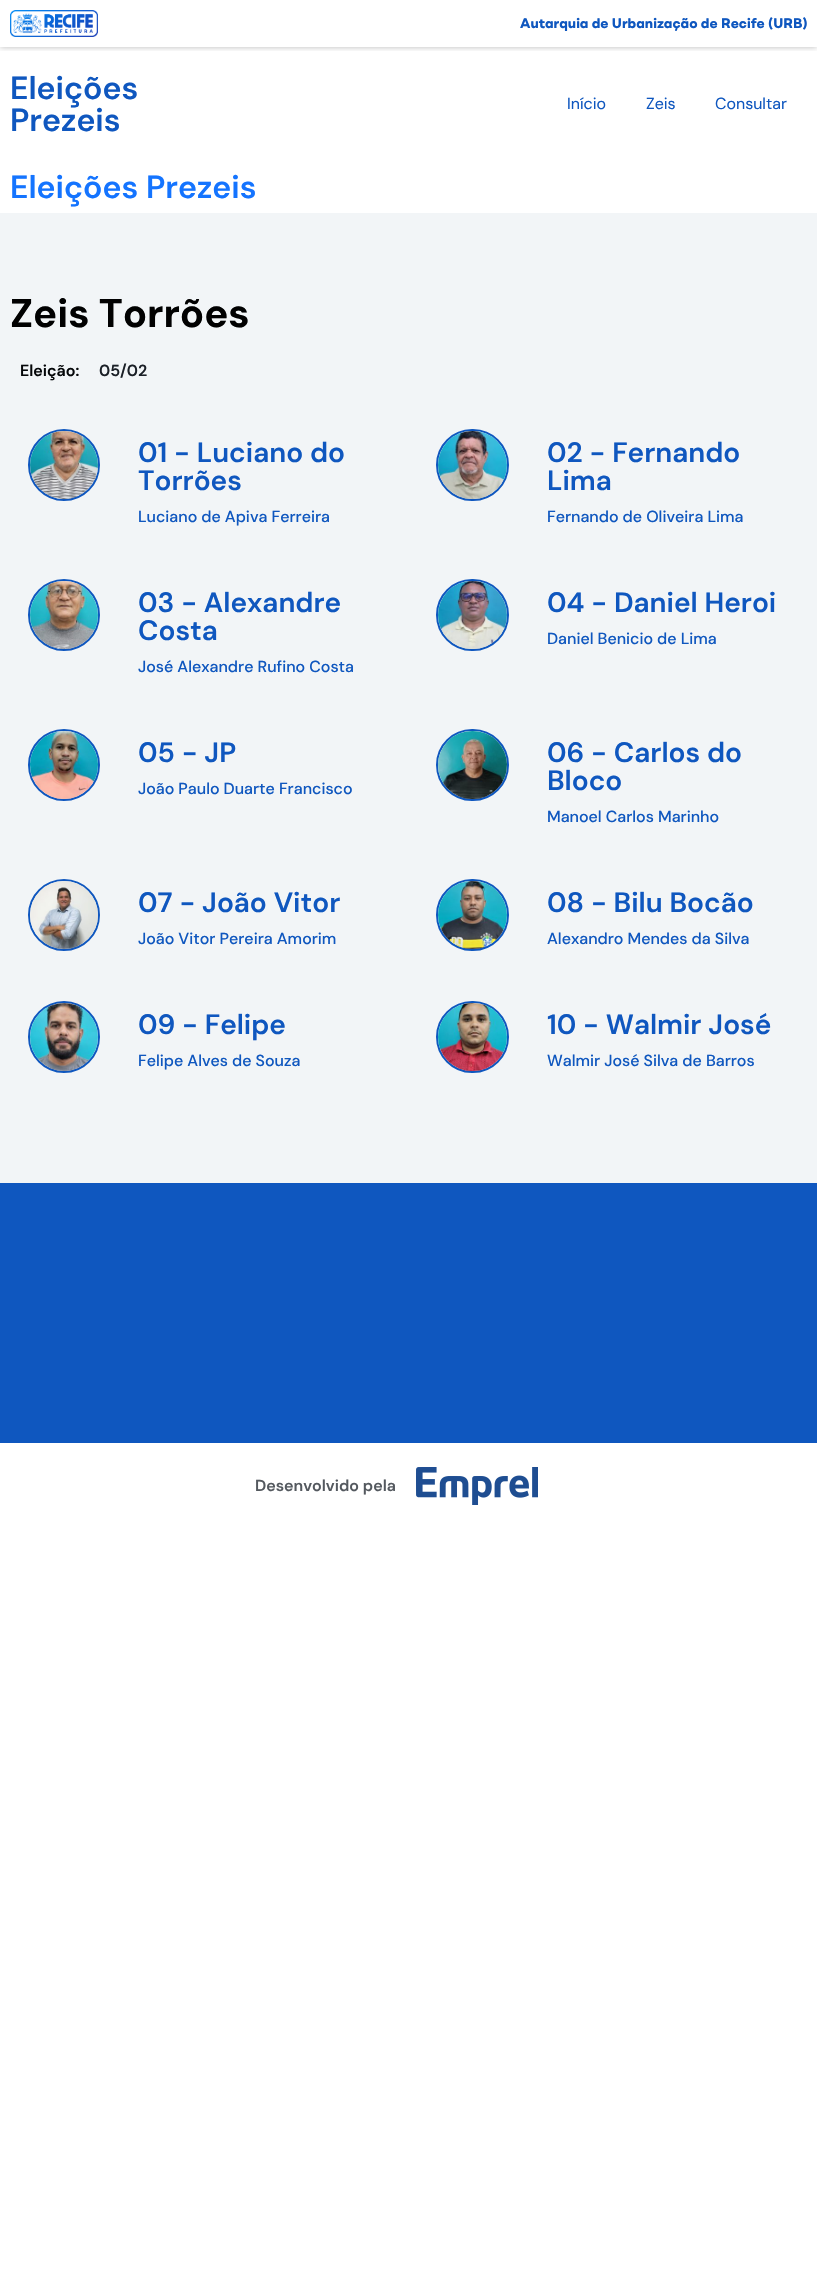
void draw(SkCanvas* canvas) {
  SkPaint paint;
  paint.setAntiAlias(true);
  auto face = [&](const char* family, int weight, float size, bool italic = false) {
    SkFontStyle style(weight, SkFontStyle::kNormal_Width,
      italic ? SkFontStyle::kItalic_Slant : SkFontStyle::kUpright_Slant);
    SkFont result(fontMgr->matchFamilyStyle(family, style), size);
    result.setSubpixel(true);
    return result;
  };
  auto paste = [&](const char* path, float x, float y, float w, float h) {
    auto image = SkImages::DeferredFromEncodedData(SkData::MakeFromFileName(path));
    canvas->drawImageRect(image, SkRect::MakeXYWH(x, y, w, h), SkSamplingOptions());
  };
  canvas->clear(0xffffffff);
  canvas->save();
  canvas->clipRect(SkRect::MakeXYWH(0, 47, 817, 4));
  paint.setColor(0x45000000);
  paint.setMaskFilter(SkMaskFilter::MakeBlur(kNormal_SkBlurStyle, 3));
  canvas->drawRect(SkRect::MakeXYWH(0, 0, 817, 47), paint);
  paint.setMaskFilter(nullptr);
  canvas->restore();
  paste("img/1.png", 10, 10, 88, 27);
  paint.setColor(0xfff2f5f7);
  canvas->drawRect(SkRect::MakeXYWH(0, 213, 817, 970), paint);
  paint.setStroke(true);
  paint.setStrokeWidth(2);
  paint.setColor(0xff0f57bf);
  canvas->drawCircle(64, 465, 35, paint);
  paste("img/2.png", 30, 431, 68, 68);
  canvas->drawRoundRect(SkRect::MakeXYWH(437, 430, 71, 70), 35, 35, paint);
  paste("img/3.png", 438, 431, 69, 68);
  canvas->drawCircle(64, 615, 35, paint);
  paste("img/4.png", 30, 581, 68, 68);
  canvas->drawRoundRect(SkRect::MakeXYWH(437, 580, 71, 70), 35, 35, paint);
  paste("img/5.png", 438, 581, 69, 68);
  canvas->drawCircle(64, 765, 35, paint);
  paste("img/6.png", 30, 731, 68, 68);
  canvas->drawRoundRect(SkRect::MakeXYWH(437, 730, 71, 70), 35, 35, paint);
  paste("img/7.png", 438, 731, 69, 68);
  canvas->drawCircle(64, 915, 35, paint);
  paste("img/8.png", 30, 881, 68, 68);
  canvas->drawRoundRect(SkRect::MakeXYWH(437, 880, 71, 70), 35, 35, paint);
  paste("img/9.png", 438, 881, 69, 68);
  canvas->drawCircle(64, 1037, 35, paint);
  paste("img/10.png", 30, 1003, 68, 68);
  canvas->drawRoundRect(SkRect::MakeXYWH(437, 1002, 71, 70), 35, 35, paint);
  paste("img/11.png", 438, 1003, 69, 68);
  paint.setStroke(false);
  canvas->drawRect(SkRect::MakeXYWH(0, 1183, 817, 260), paint);
  paste("img/12.png", 416, 1467, 122, 38);
  auto f0 = face("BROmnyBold", 700, 14);
  canvas->drawString("Autarquia de Urbanização de Recife (URB)", 520, 28, f0, paint);
  auto f1 = face("DM Sans", 600, 32);
  canvas->drawString("Eleições", 10, 99, f1, paint);
  canvas->drawString("Prezeis", 10, 131, f1, paint);
  auto f2 = face("DM Sans", 400, 16);
  {
    const struct { const char* s; float x, y; } items[] = {
      {"Início", 567, 109},
      {"Zeis", 646, 109},
      {"Consultar", 715, 109},
    };
    for (auto [s, x, y] : items) {
      canvas->drawString(s, x, y, f2, paint);
    }
  }
  paint.setColor(0xff1474ff);
  canvas->drawString("Eleições Prezeis", 10, 198, f1, paint);
  auto f3 = face("DM Sans", 700, 40);
  paint.setColor(0xff010101);
  canvas->drawString("Zeis Torrões", 10, 327, f3, paint);
  auto f4 = face("DM Sans", 600, 16);
  paint.setColor(0xff050709);
  canvas->drawString("Eleição:", 20, 376, f4, paint);
  paint.setColor(0xff1b2027);
  canvas->drawString("05/02", 99, 376, f4, paint);
  auto f5 = face("DM Sans", 600, 28);
  paint.setColor(0xff0f57bf);
  canvas->drawString("01 - Luciano do", 138, 462, f5, paint);
  canvas->drawString("Torrões", 138, 490, f5, paint);
  auto f6 = face("DM Sans", 500, 16);
  canvas->drawString("Luciano de Apiva Ferreira", 138, 522, f6, paint);
  canvas->drawString("02 - Fernando", 547, 462, f5, paint);
  canvas->drawString("Lima", 547, 490, f5, paint);
  canvas->drawString("Fernando de Oliveira Lima", 547, 522, f6, paint);
  canvas->drawString("03 - Alexandre", 138, 612, f5, paint);
  canvas->drawString("Costa", 138, 640, f5, paint);
  canvas->drawString("José Alexandre Rufino Costa", 138, 672, f6, paint);
  canvas->drawString("04 - Daniel Heroi", 547, 612, f5, paint);
  canvas->drawString("Daniel Benicio de Lima", 547, 644, f6, paint);
  canvas->drawString("05 - JP", 138, 762, f5, paint);
  canvas->drawString("João Paulo Duarte Francisco", 138, 794, f6, paint);
  canvas->drawString("06 - Carlos do", 547, 762, f5, paint);
  canvas->drawString("Bloco", 547, 790, f5, paint);
  canvas->drawString("Manoel Carlos Marinho", 547, 822, f6, paint);
  canvas->drawString("07 - João Vitor", 138, 912, f5, paint);
  canvas->drawString("João Vitor Pereira Amorim", 138, 944, f6, paint);
  canvas->drawString("08 - Bilu Bocão", 547, 912, f5, paint);
  canvas->drawString("Alexandro Mendes da Silva", 547, 944, f6, paint);
  canvas->drawString("09 - Felipe", 138, 1034, f5, paint);
  canvas->drawString("Felipe Alves de Souza", 138, 1066, f6, paint);
  canvas->drawString("10 - Walmir José", 547, 1034, f5, paint);
  canvas->drawString("Walmir José Silva de Barros", 547, 1066, f6, paint);
  paint.setColor(0xff54595f);
  canvas->drawString("Desenvolvido pela", 255, 1491, f4, paint);
}
